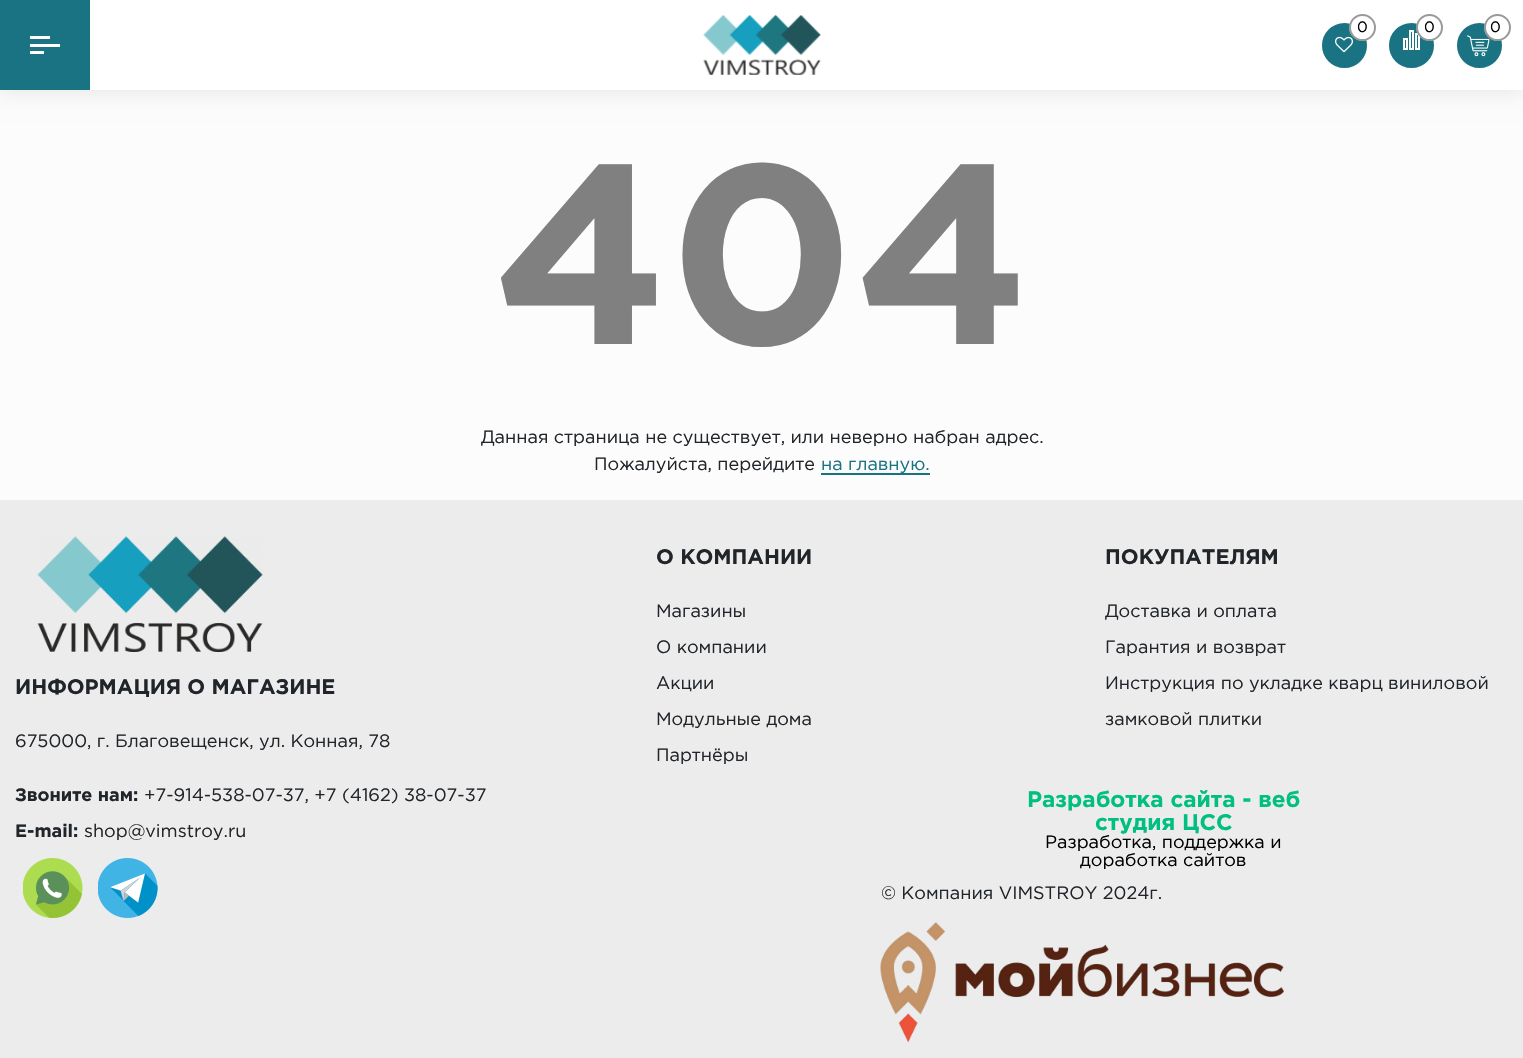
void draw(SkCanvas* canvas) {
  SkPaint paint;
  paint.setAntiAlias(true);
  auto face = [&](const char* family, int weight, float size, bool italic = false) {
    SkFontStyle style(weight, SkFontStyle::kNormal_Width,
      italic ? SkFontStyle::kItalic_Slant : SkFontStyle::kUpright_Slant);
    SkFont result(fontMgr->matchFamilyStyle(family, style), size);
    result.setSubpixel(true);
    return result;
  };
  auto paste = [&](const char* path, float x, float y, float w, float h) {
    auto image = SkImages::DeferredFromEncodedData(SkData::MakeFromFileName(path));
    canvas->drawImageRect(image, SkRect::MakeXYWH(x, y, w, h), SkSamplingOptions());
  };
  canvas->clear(0xfffcfcfc);
  paint.setColor(0x1a000000);
  paint.setMaskFilter(SkMaskFilter::MakeBlur(kNormal_SkBlurStyle, 11));
  canvas->drawRect(SkRect::MakeXYWH(0, 0, 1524, 90), paint);
  paint.setMaskFilter(nullptr);
  {
    const struct { float x, y, w, h; SkColor color; } items[] = {
      {90, 0, 1433, 90, 0xffffffff},
      {0, 0, 90, 90, 0xff1a7382},
      {30, 44, 30, 3, 0xffffffff},
      {30, 36, 20, 3, 0xffffffff},
      {30, 51, 14, 3, 0xffffffff},
    };
    for (auto [x, y, w, h, color] : items) {
      paint.setColor(color);
      canvas->drawRect(SkRect::MakeXYWH(x, y, w, h), paint);
    }
  }
  paste("img/1.png", 703, 15, 118, 60);
  paint.setColor(0xff1a7382);
  canvas->drawCircle(1344.5f, 45.5f, 21.5f, paint);
  paint.setStroke(true);
  paint.setStrokeWidth(2);
  canvas->drawCircle(1344.5f, 45.5f, 21.5f, paint);
  paste("img/2.png", 1335, 36, 18, 17);
  paint.setStroke(false);
  paint.setColor(0xffffffff);
  canvas->drawCircle(1362.5f, 27.5f, 13.5f, paint);
  paint.setStroke(true);
  paint.setColor(0x66000000);
  canvas->drawCircle(1362.5f, 27.5f, 12.5f, paint);
  paint.setStroke(false);
  paint.setColor(0xff1a7382);
  canvas->drawCircle(1411.5f, 45.5f, 21.5f, paint);
  paint.setStroke(true);
  canvas->drawCircle(1411.5f, 45.5f, 21.5f, paint);
  paint.setColor(0xffffffff);
  canvas->drawRect(SkRect::MakeXYWH(1416, 34, 3, 15), paint);
  paint.setStroke(false);
  canvas->drawCircle(1429.5f, 27.5f, 13.5f, paint);
  paint.setStroke(true);
  paint.setColor(0x66000000);
  canvas->drawCircle(1429.5f, 27.5f, 12.5f, paint);
  paint.setColor(0xffffffff);
  canvas->drawRect(SkRect::MakeXYWH(1404, 39, 3, 10), paint);
  canvas->drawRect(SkRect::MakeXYWH(1410, 31, 3, 18), paint);
  paint.setStroke(false);
  paint.setColor(0xff1a7382);
  canvas->drawCircle(1479.5f, 45.5f, 21.5f, paint);
  paint.setStroke(true);
  canvas->drawCircle(1479.5f, 45.5f, 21.5f, paint);
  paste("img/3.png", 1467, 35, 23, 22);
  paint.setStroke(false);
  paint.setColor(0xffffffff);
  canvas->drawCircle(1497.5f, 27.5f, 13.5f, paint);
  paint.setStroke(true);
  paint.setColor(0x66000000);
  canvas->drawCircle(1497.5f, 27.5f, 12.5f, paint);
  paint.setStroke(false);
  paint.setColor(0xff1a7382);
  canvas->drawRect(SkRect::MakeXYWH(821, 473, 109, 2), paint);
  paint.setColor(0xffececec);
  canvas->drawRect(SkRect::MakeXYWH(0, 500, 1523, 558), paint);
  paste("img/4.png", 37, 536, 226, 116);
  paste("img/5.png", 23, 858, 60, 60);
  paste("img/6.png", 98, 858, 60, 60);
  paste("img/7.png", 880, 922, 404, 121);
  auto f0 = face("Gotham", 400, 15);
  paint.setColor(0xff000000);
  {
    const struct { const char* s; float x, y; } items[] = {
      {"0", 1357, 32},
      {"0", 1424, 32},
      {"0", 1490, 32},
    };
    for (auto [s, x, y] : items) {
      canvas->drawString(s, x, y, f0, paint);
    }
  }
  auto f1 = face("Gotham", 700, 255);
  paint.setColor(0xff808080);
  canvas->drawString("404", 493, 344, f1, paint);
  auto f2 = face("Gotham", 400, 18);
  paint.setColor(0xff212529);
  canvas->drawString("Данная страница не существует, или неверно набран адрес.", 481, 443, f2, paint);
  canvas->drawString("Пожалуйста, перейдите", 594, 470, f2, paint);
  paint.setColor(0xff1a7382);
  canvas->drawString("на главную.", 821, 470, f2, paint);
  auto f3 = face("Gotham", 700, 21);
  paint.setColor(0xff212529);
  canvas->drawString("ИНФОРМАЦИЯ О МАГАЗИНЕ", 15, 694, f3, paint);
  canvas->drawString("675000, г. Благовещенск, ул. Конная, 78", 15, 747, f2, paint);
  auto f4 = face("Gotham", 700, 18);
  canvas->drawString("Звоните нам:", 15, 801, f4, paint);
  canvas->drawString("+7-914-538-07-37, +7 (4162) 38-07-37", 144, 801, f2, paint);
  canvas->drawString("E-mail:", 15, 837, f4, paint);
  canvas->drawString("shop@vimstroy.ru", 84, 837, f2, paint);
  canvas->drawString("О КОМПАНИИ", 656, 564, f3, paint);
  {
    const struct { const char* s; float x, y; } items[] = {
      {"Магазины", 656, 617},
      {"О компании", 656, 653},
      {"Акции", 656, 689},
      {"Модульные дома", 656, 725},
      {"Партнёры", 656, 761},
    };
    for (auto [s, x, y] : items) {
      canvas->drawString(s, x, y, f2, paint);
    }
  }
  canvas->drawString("ПОКУПАТЕЛЯМ", 1105, 564, f3, paint);
  {
    const struct { const char* s; float x, y; } items[] = {
      {"Доставка и оплата", 1105, 617},
      {"Гарантия и возврат", 1105, 653},
      {"Инструкция по укладке кварц виниловой", 1105, 689},
      {"замковой плитки", 1105, 725},
    };
    for (auto [s, x, y] : items) {
      canvas->drawString(s, x, y, f2, paint);
    }
  }
  auto f5 = face("Gotham", 700, 22.5f);
  paint.setColor(0xff00bf80);
  canvas->drawString("Разработка сайта - веб", 1027, 807, f5, paint);
  canvas->drawString("студия ЦСС", 1095, 830, f5, paint);
  paint.setColor(0xff000000);
  canvas->drawString("Разработка, поддержка и", 1045, 848, f2, paint);
  canvas->drawString("доработка сайтов", 1080, 866, f2, paint);
  paint.setColor(0xff212529);
  canvas->drawString("© Компания VIMSTROY 2024г.", 881, 899, f2, paint);
}
